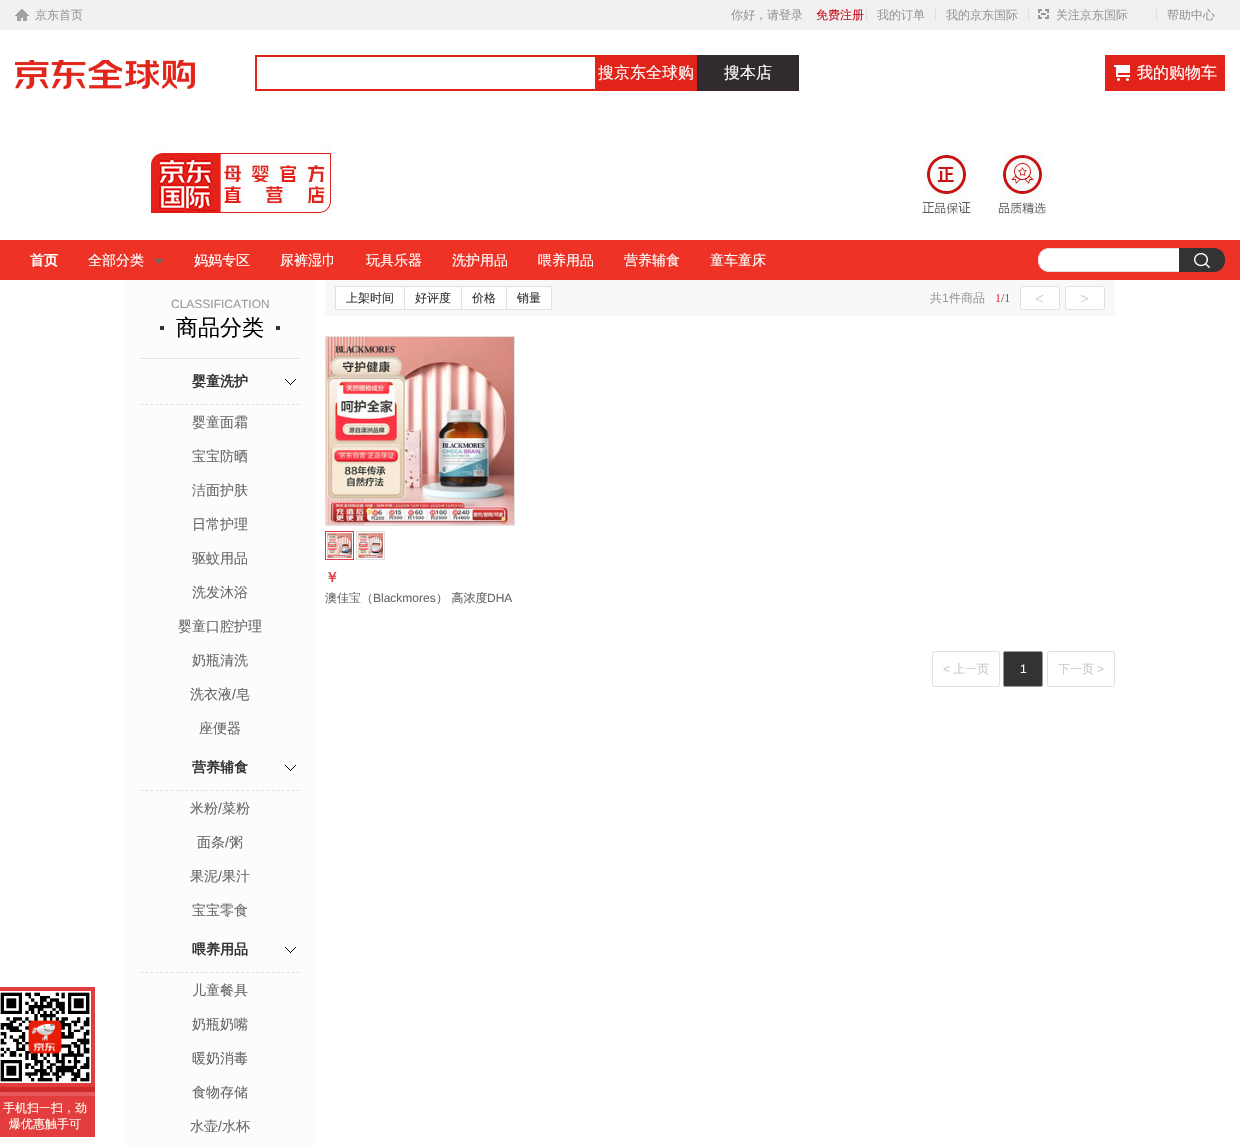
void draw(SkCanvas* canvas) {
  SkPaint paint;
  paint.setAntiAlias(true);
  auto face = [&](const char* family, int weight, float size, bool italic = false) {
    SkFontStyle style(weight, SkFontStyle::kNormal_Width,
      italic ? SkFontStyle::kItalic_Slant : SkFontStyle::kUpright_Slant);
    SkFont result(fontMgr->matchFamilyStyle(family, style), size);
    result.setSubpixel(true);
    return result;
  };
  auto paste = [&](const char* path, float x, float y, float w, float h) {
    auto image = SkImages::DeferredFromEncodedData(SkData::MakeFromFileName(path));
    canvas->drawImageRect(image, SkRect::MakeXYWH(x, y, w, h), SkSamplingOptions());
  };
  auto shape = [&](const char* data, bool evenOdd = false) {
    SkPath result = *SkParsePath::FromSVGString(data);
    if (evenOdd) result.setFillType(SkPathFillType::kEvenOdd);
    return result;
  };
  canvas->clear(0xffffffff);
  paint.setColor(0xfff1f1f1);
  canvas->drawRect(SkRect::MakeXYWH(0, 0, 1240, 30), paint);
  paste("img/1.png", 15, 9, 14, 12);
  {
    const struct { float x, y, w, h; SkColor color; } items[] = {
      {866, 9, 1, 12, 0xffdddddd},
      {935, 9, 1, 12, 0xffdddddd},
      {1028, 9, 1, 12, 0xffdddddd},
    };
    for (auto [x, y, w, h, color] : items) {
      paint.setColor(color);
      canvas->drawRect(SkRect::MakeXYWH(x, y, w, h), paint);
    }
  }
  paste("img/2.png", 1038, 9, 11, 10);
  canvas->drawRect(SkRect::MakeXYWH(1156, 9, 1, 12), paint);
  paste("img/3.png", 15, 60, 180, 29);
  {
    const struct { float x, y, w, h; SkColor color; } items[] = {
      {255, 55, 340, 2, 0xffe2231a},
      {255, 89, 340, 2, 0xffe2231a},
      {255, 55, 2, 36, 0xffe2231a},
      {595, 55, 102, 36, 0xffe2231a},
      {697, 55, 102, 36, 0xff312b30},
      {1105, 55, 120, 36, 0xffe2231a},
    };
    for (auto [x, y, w, h, color] : items) {
      paint.setColor(color);
      canvas->drawRect(SkRect::MakeXYWH(x, y, w, h), paint);
    }
  }
  paste("img/4.png", 1114, 65, 16, 16);
  paste("img/5.png", 148, 146, 901, 72);
  paint.setColor(0xffee3326);
  canvas->drawRect(SkRect::MakeXYWH(0, 240, 1240, 40), paint);
  paint.setColor(0xff666666);
  canvas->drawPath(shape("M154 259H164L159 264Z"), paint);
  paint.setColor(0xffffffff);
  canvas->drawPath(shape("M1049 248.5H1179.5V271.5H1049C1043 271.5 1038.5 267 1038.5 261V259C1038.5 253 1043 248.5 1049 248.5Z"), paint);
  paint.setStroke(true);
  paint.setStrokeWidth(1);
  paint.setColor(0xffe1e1e1);
  canvas->drawPath(shape("M1049 248.5H1179.5V271.5H1049C1043 271.5 1038.5 267 1038.5 261V259C1038.5 253 1043 248.5 1049 248.5Z"), paint);
  paint.setStroke(false);
  paint.setColor(0xff333333);
  canvas->drawPath(shape("M1179 248H1214C1220 248 1225 253 1225 259V261C1225 267 1220 272 1214 272H1179Z"), paint);
  paste("img/6.png", 1194, 253, 16, 15);
  {
    const struct { float x, y, w, h; SkColor color; } items[] = {
      {125, 280, 190, 867, 0xfffcfcfc},
      {140, 358, 160, 1, 0xffe1e1e1},
      {160, 326, 4, 4, 0xff333333},
      {276, 326, 4, 4, 0xff333333},
    };
    for (auto [x, y, w, h, color] : items) {
      paint.setColor(color);
      canvas->drawRect(SkRect::MakeXYWH(x, y, w, h), paint);
    }
  }
  paint.setStroke(true);
  paint.setColor(0xffe1e1e1);
  paint.setPathEffect(SkDashPathEffect::Make({{3, 2.06f}}, 0));
  canvas->drawPath(shape("M140 404.5H300"), paint);
  paint.setPathEffect(nullptr);
  paste("img/7.png", 285, 379, 11, 6);
  paint.setPathEffect(SkDashPathEffect::Make({{3, 2.06f}}, 0));
  canvas->drawPath(shape("M140 790.5H300"), paint);
  paint.setPathEffect(nullptr);
  paste("img/7.png", 285, 765, 11, 6);
  paint.setPathEffect(SkDashPathEffect::Make({{3, 2.06f}}, 0));
  canvas->drawPath(shape("M140 972.5H300"), paint);
  paint.setPathEffect(nullptr);
  paste("img/7.png", 285, 947, 11, 6);
  paint.setStroke(false);
  paint.setColor(0xfff8f8f8);
  canvas->drawRect(SkRect::MakeXYWH(325, 280, 790, 36), paint);
  paint.setColor(0xffffffff);
  canvas->drawRect(SkRect::MakeXYWH(335.5f, 286.5f, 69, 23), paint);
  paint.setStroke(true);
  paint.setColor(0xffe1e1e1);
  canvas->drawRect(SkRect::MakeXYWH(335.5f, 286.5f, 69, 23), paint);
  paint.setStroke(false);
  paint.setColor(0xffffffff);
  canvas->drawRect(SkRect::MakeXYWH(404.5f, 286.5f, 57, 23), paint);
  paint.setStroke(true);
  paint.setColor(0xffe1e1e1);
  canvas->drawRect(SkRect::MakeXYWH(404.5f, 286.5f, 57, 23), paint);
  paint.setStroke(false);
  paint.setColor(0xffffffff);
  canvas->drawRect(SkRect::MakeXYWH(461.5f, 286.5f, 45, 23), paint);
  paint.setStroke(true);
  paint.setColor(0xffe1e1e1);
  canvas->drawRect(SkRect::MakeXYWH(461.5f, 286.5f, 45, 23), paint);
  paint.setStroke(false);
  paint.setColor(0xffffffff);
  canvas->drawRect(SkRect::MakeXYWH(506.5f, 286.5f, 45, 23), paint);
  paint.setStroke(true);
  paint.setColor(0xffe1e1e1);
  canvas->drawRect(SkRect::MakeXYWH(506.5f, 286.5f, 45, 23), paint);
  paint.setStroke(false);
  paint.setColor(0xffffffff);
  canvas->drawRoundRect(SkRect::MakeXYWH(1020.5f, 286.5f, 39, 23), 1.5f, 1.5f, paint);
  paint.setStroke(true);
  paint.setColor(0xffe1e1e1);
  canvas->drawRoundRect(SkRect::MakeXYWH(1020.5f, 286.5f, 39, 23), 1.5f, 1.5f, paint);
  paint.setStroke(false);
  paint.setColor(0xffffffff);
  canvas->drawRoundRect(SkRect::MakeXYWH(1065.5f, 286.5f, 39, 23), 1.5f, 1.5f, paint);
  paint.setStroke(true);
  paint.setColor(0xffe1e1e1);
  canvas->drawRoundRect(SkRect::MakeXYWH(1065.5f, 286.5f, 39, 23), 1.5f, 1.5f, paint);
  canvas->drawRect(SkRect::MakeXYWH(325.5f, 336.5f, 189, 189), paint);
  paste("img/8.png", 326, 337, 188, 188);
  paint.setColor(0xffe4393c);
  canvas->drawRect(SkRect::MakeXYWH(325.5f, 531.5f, 28, 28), paint);
  paste("img/9.png", 327, 533, 25, 25);
  paint.setColor(0xffdddddd);
  canvas->drawRect(SkRect::MakeXYWH(356.5f, 531.5f, 28, 28), paint);
  paste("img/10.png", 358, 533, 25, 25);
  paint.setColor(0xffe1e1e1);
  canvas->drawRoundRect(SkRect::MakeXYWH(932.5f, 651.5f, 67, 35), 1.5f, 1.5f, paint);
  paint.setStroke(false);
  paint.setColor(0xff333333);
  canvas->drawRoundRect(SkRect::MakeXYWH(1003.5f, 651.5f, 39, 35), 1.5f, 1.5f, paint);
  paint.setStroke(true);
  paint.setColor(0xff999999);
  canvas->drawRoundRect(SkRect::MakeXYWH(1003.5f, 651.5f, 39, 35), 1.5f, 1.5f, paint);
  paint.setColor(0xffe1e1e1);
  canvas->drawRoundRect(SkRect::MakeXYWH(1047.5f, 651.5f, 67, 35), 1.5f, 1.5f, paint);
  paint.setStroke(false);
  paint.setColor(0xffe43d3f);
  canvas->drawRect(SkRect::MakeXYWH(0, 987, 95, 100), paint);
  paste("img/11.png", 0, 991, 91, 92);
  paste("img/12.png", 0, 1087, 95, 9);
  canvas->drawRect(SkRect::MakeXYWH(0, 1096, 95, 41), paint);
  auto f0 = face("WenQuanYi Zen Hei", 500, 12);
  paint.setColor(0xff999999);
  canvas->drawString("京东首页", 35, 19, f0, paint);
  canvas->drawString("你好，请登录", 731, 19, f0, paint);
  paint.setColor(0xffc81623);
  canvas->drawString("免费注册", 816, 19, f0, paint);
  paint.setColor(0xff999999);
  {
    const struct { const char* s; float x, y; } items[] = {
      {"我的订单", 877, 19},
      {"我的京东国际", 946, 19},
      {"关注京东国际", 1056, 19},
      {"帮助中心", 1167, 19},
    };
    for (auto [s, x, y] : items) {
      canvas->drawString(s, x, y, f0, paint);
    }
  }
  auto f1 = face("WenQuanYi Zen Hei", 500, 16);
  paint.setColor(0xffffffff);
  {
    const struct { const char* s; float x, y; } items[] = {
      {"搜京东全球购", 598, 78},
      {"搜本店", 724, 78},
      {"我的购物车", 1137, 78},
    };
    for (auto [s, x, y] : items) {
      canvas->drawString(s, x, y, f1, paint);
    }
  }
  auto f2 = face("WenQuanYi Zen Hei", 700, 14);
  canvas->drawString("首页", 30, 265, f2, paint);
  auto f3 = face("WenQuanYi Zen Hei", 500, 14);
  {
    const struct { const char* s; float x, y; } items[] = {
      {"全部分类", 88, 265},
      {"妈妈专区", 194, 265},
      {"尿裤湿巾", 280, 265},
      {"玩具乐器", 366, 265},
      {"洗护用品", 452, 265},
      {"喂养用品", 538, 265},
      {"营养辅食", 624, 265},
      {"童车童床", 710, 265},
    };
    for (auto [s, x, y] : items) {
      canvas->drawString(s, x, y, f3, paint);
    }
  }
  auto f4 = face("Liberation Sans", 400, 12);
  paint.setColor(0xff999999);
  canvas->drawString("CLASSIFICATION", 171, 308, f4, paint);
  auto f5 = face("WenQuanYi Zen Hei", 500, 22);
  paint.setColor(0xff000000);
  canvas->drawString("商品分类", 176, 335, f5, paint);
  paint.setColor(0xff333333);
  canvas->drawString("婴童洗护", 192, 386, f2, paint);
  paint.setColor(0xff666666);
  {
    const struct { const char* s; float x, y; } items[] = {
      {"婴童面霜", 192, 427},
      {"宝宝防晒", 192, 461},
      {"洁面护肤", 192, 495},
      {"日常护理", 192, 529},
      {"驱蚊用品", 192, 563},
      {"洗发沐浴", 192, 597},
      {"婴童口腔护理", 178, 631},
      {"奶瓶清洗", 192, 665},
      {"洗衣液", 190, 699},
    };
    for (auto [s, x, y] : items) {
      canvas->drawString(s, x, y, f3, paint);
    }
  }
  auto f6 = face("Liberation Sans", 400, 14);
  canvas->drawString("/", 232, 699, f6, paint);
  canvas->drawString("皂", 236, 699, f3, paint);
  canvas->drawString("座便器", 199, 733, f3, paint);
  paint.setColor(0xff333333);
  canvas->drawString("营养辅食", 192, 772, f2, paint);
  paint.setColor(0xff666666);
  canvas->drawString("米粉", 190, 813, f3, paint);
  canvas->drawString("/", 218, 813, f6, paint);
  canvas->drawString("菜粉", 222, 813, f3, paint);
  canvas->drawString("面条", 197, 847, f3, paint);
  canvas->drawString("/", 225, 847, f6, paint);
  canvas->drawString("粥", 229, 847, f3, paint);
  canvas->drawString("果泥", 190, 881, f3, paint);
  canvas->drawString("/", 218, 881, f6, paint);
  canvas->drawString("果汁", 222, 881, f3, paint);
  canvas->drawString("宝宝零食", 192, 915, f3, paint);
  paint.setColor(0xff333333);
  canvas->drawString("喂养用品", 192, 954, f2, paint);
  paint.setColor(0xff666666);
  {
    const struct { const char* s; float x, y; } items[] = {
      {"儿童餐具", 192, 995},
      {"奶瓶奶嘴", 192, 1029},
      {"暖奶消毒", 192, 1063},
      {"食物存储", 192, 1097},
      {"水壶", 190, 1131},
    };
    for (auto [s, x, y] : items) {
      canvas->drawString(s, x, y, f3, paint);
    }
  }
  canvas->drawString("/", 218, 1131, f6, paint);
  canvas->drawString("水杯", 222, 1131, f3, paint);
  paint.setColor(0xff333333);
  {
    const struct { const char* s; float x, y; } items[] = {
      {"上架时间", 346, 302},
      {"好评度", 415, 302},
      {"价格", 472, 302},
      {"销量", 517, 302},
    };
    for (auto [s, x, y] : items) {
      canvas->drawString(s, x, y, f0, paint);
    }
  }
  paint.setColor(0xff999999);
  canvas->drawString("共", 930, 302, f0, paint);
  canvas->drawString("1", 942, 302, f4, paint);
  canvas->drawString("件商品", 949, 302, f0, paint);
  auto f7 = face("Liberation Serif", 400, 12);
  paint.setColor(0xffe4393c);
  canvas->drawString("1", 995, 302, f7, paint);
  paint.setColor(0xff666666);
  canvas->drawString("/1", 1001, 302, f7, paint);
  auto f8 = face("Liberation Serif", 400, 16);
  paint.setColor(0xffc9c9c9);
  canvas->drawString("<", 1035, 304, f8, paint);
  canvas->drawString(">", 1080, 304, f8, paint);
  paint.setColor(0xffe4393c);
  canvas->drawString("￥", 325, 582, f2, paint);
  paint.setColor(0xff666666);
  canvas->drawString("澳佳宝（", 325, 602, f0, paint);
  canvas->drawString("Blackmores", 373, 602, f4, paint);
  canvas->drawString("） 高浓度", 436, 602, f0, paint);
  canvas->drawString("DHA", 487, 602, f4, paint);
  paint.setColor(0xffc9c9c9);
  canvas->drawString("<", 943, 673, f4, paint);
  canvas->drawString("上一页", 953, 673, f0, paint);
  paint.setColor(0xffffffff);
  canvas->drawString("1", 1020, 673, f4, paint);
  paint.setColor(0xffc9c9c9);
  canvas->drawString("下一页", 1058, 673, f0, paint);
  canvas->drawString(">", 1097, 673, f4, paint);
  paint.setColor(0xfffffbee);
  canvas->drawString("手机扫一扫，劲", 3, 1112, f0, paint);
  canvas->drawString("爆优惠触手可", 9, 1128, f0, paint);
}
